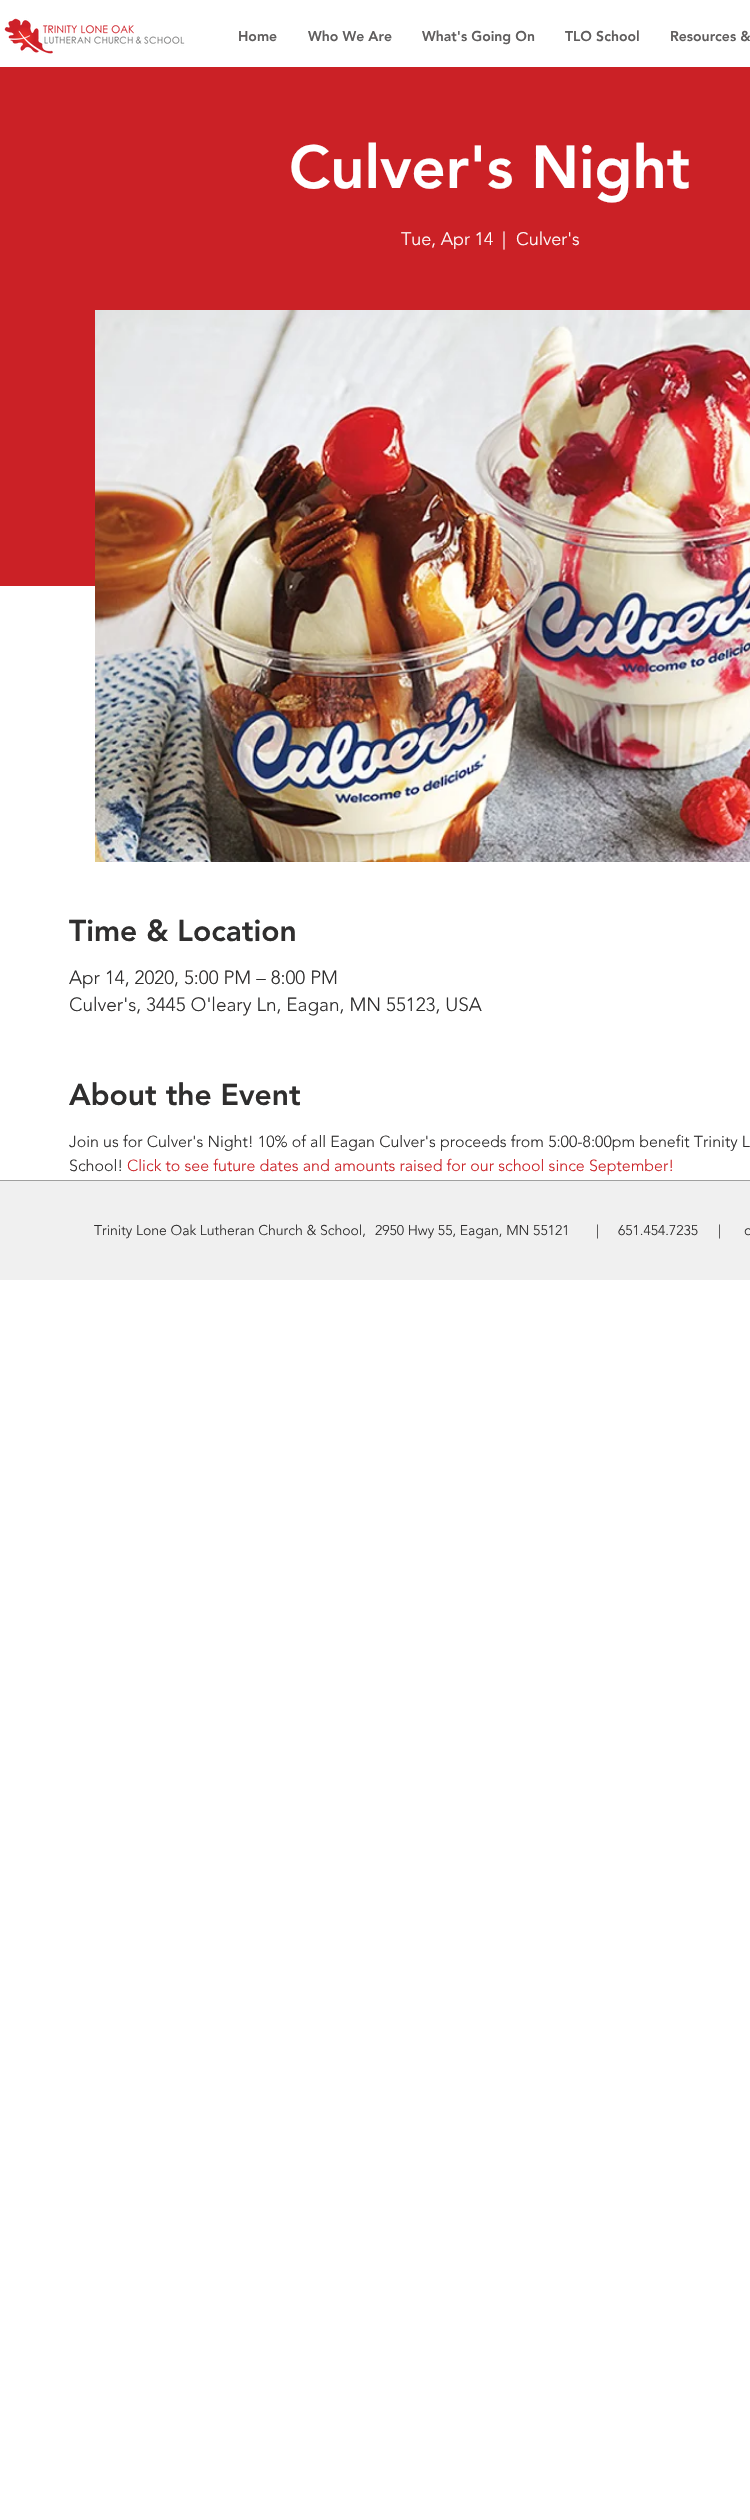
void draw(SkCanvas* canvas) {
  SkPaint paint;
  paint.setAntiAlias(true);
  auto face = [&](const char* family, int weight, float size, bool italic = false) {
    SkFontStyle style(weight, SkFontStyle::kNormal_Width,
      italic ? SkFontStyle::kItalic_Slant : SkFontStyle::kUpright_Slant);
    SkFont result(fontMgr->matchFamilyStyle(family, style), size);
    result.setSubpixel(true);
    return result;
  };
  auto paste = [&](const char* path, float x, float y, float w, float h) {
    auto image = SkImages::DeferredFromEncodedData(SkData::MakeFromFileName(path));
    canvas->drawImageRect(image, SkRect::MakeXYWH(x, y, w, h), SkSamplingOptions());
  };
  canvas->clear(0xffffffff);
  paste("img/1.png", 4, 18, 181, 36);
  paint.setColor(0xffcb2126);
  canvas->drawRect(SkRect::MakeXYWH(0, 67, 750, 519), paint);
  paste("img/2.png", 95, 310, 655, 552);
  paint.setColor(0xfff0f0f0);
  canvas->drawRect(SkRect::MakeXYWH(0, 1181, 750, 99), paint);
  paint.setColor(0xffa0a09f);
  canvas->drawRect(SkRect::MakeXYWH(0, 1180, 750, 1), paint);
  auto f0 = face("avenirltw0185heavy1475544", 900, 14);
  paint.setColor(0xff605e5e);
  {
    const struct { const char* s; float x, y; } items[] = {
      {"Home", 238, 41},
      {"Who We Are", 308, 41},
      {"What's Going On", 422, 41},
      {"TLO School", 565, 41},
      {"Resources &", 670, 41},
    };
    for (auto [s, x, y] : items) {
      canvas->drawString(s, x, y, f0, paint);
    }
  }
  auto f1 = face("avenirltw0185heavy1475544", 900, 60);
  paint.setColor(0xffffffff);
  canvas->drawString("Culver's Night", 289, 188, f1, paint);
  auto f2 = face("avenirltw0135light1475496", 300, 18);
  {
    const struct { const char* s; float x, y; } items[] = {
      {"Tue, Apr 14", 401, 245},
      {"|", 502, 245},
      {"Culver's", 516, 245},
    };
    for (auto [s, x, y] : items) {
      canvas->drawString(s, x, y, f2, paint);
    }
  }
  auto f3 = face("avenirltw0185heavy1475544", 900, 30);
  paint.setColor(0xff2f2e2e);
  canvas->drawString("Time & Location", 69, 941, f3, paint);
  auto f4 = face("avenirltw0135light1475496", 300, 19);
  canvas->drawString("Apr 14, 2020, 5:00 PM – 8:00 PM", 69, 984, f4, paint);
  canvas->drawString("Culver's, 3445 O'leary Ln, Eagan, MN 55123, USA", 69, 1011, f4, paint);
  canvas->drawString("About the Event", 69, 1105, f3, paint);
  auto f5 = face("avenirltw0135light1475496", 300, 16);
  canvas->drawString("Join us for Culver's Night! 10% of all Eagan Culver's proceeds from 5:00-8:00pm benefit Trinity L", 69, 1147, f5, paint);
  canvas->drawString("School!", 69, 1171, f5, paint);
  paint.setColor(0xffcb2126);
  canvas->drawString("Click to see future dates and amounts raised for our school since September!", 127, 1171, f5, paint);
  auto f6 = face("avenirltw0135light1475496", 300, 14);
  paint.setColor(0xff2f2e2e);
  {
    const struct { const char* s; float x, y; } items[] = {
      {"Trinity Lone Oak Lutheran Church & School,", 94, 1235},
      {"2950 Hwy 55, Eagan, MN 55121", 375, 1235},
      {"|", 596, 1235},
      {"651.454.7235", 618, 1235},
      {"|", 718, 1235},
      {"o", 744, 1235},
    };
    for (auto [s, x, y] : items) {
      canvas->drawString(s, x, y, f6, paint);
    }
  }
}
